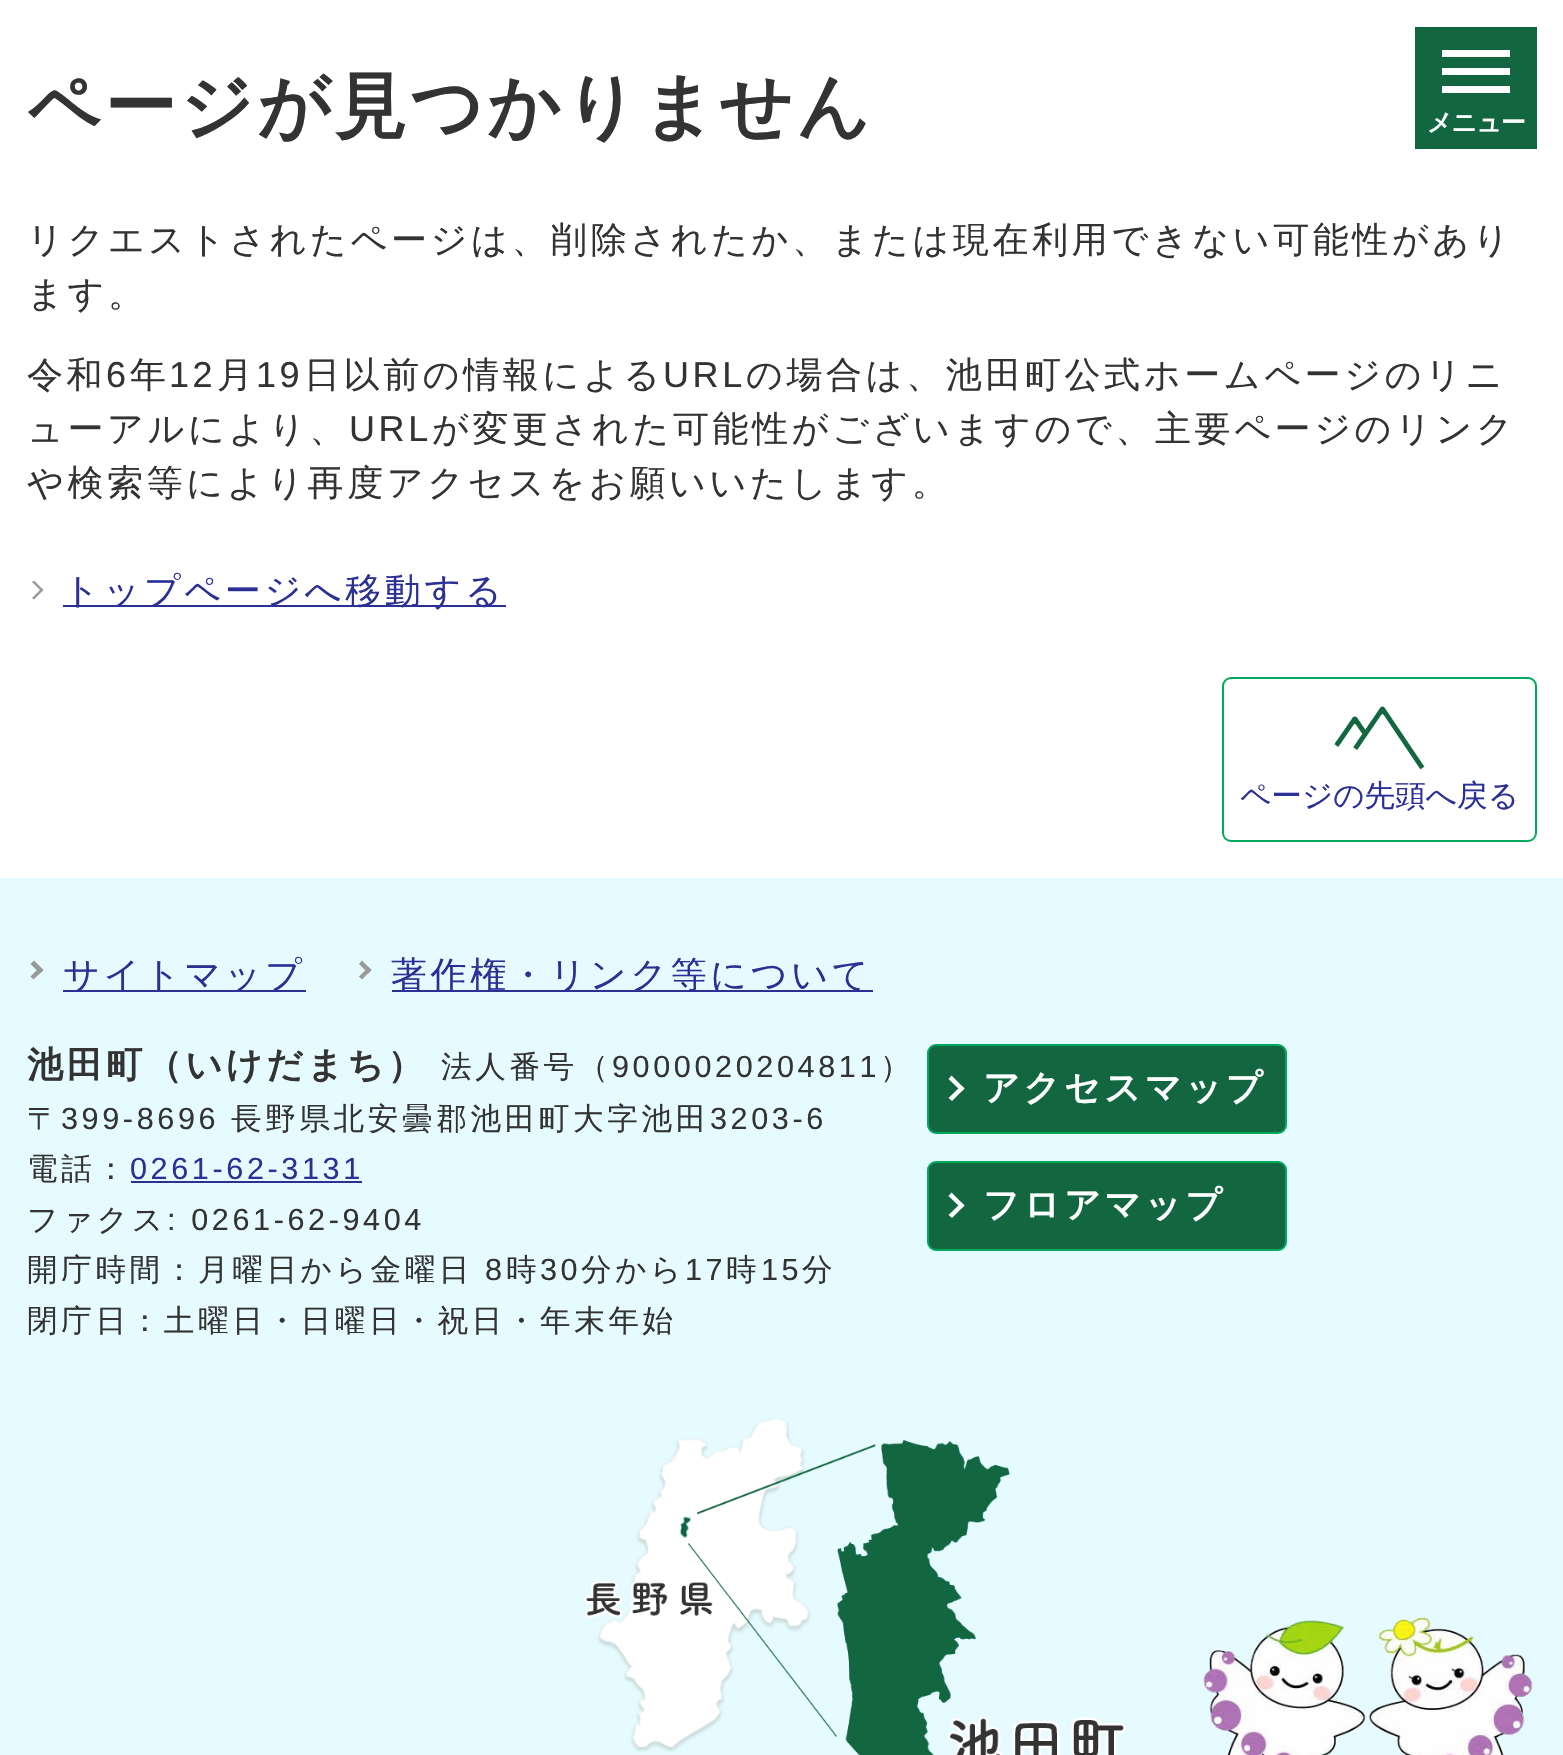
void draw(SkCanvas* canvas) {
  SkPaint paint;
  paint.setAntiAlias(true);
  auto face = [&](const char* family, int weight, float size, bool italic = false) {
    SkFontStyle style(weight, SkFontStyle::kNormal_Width,
      italic ? SkFontStyle::kItalic_Slant : SkFontStyle::kUpright_Slant);
    SkFont result(fontMgr->matchFamilyStyle(family, style), size);
    result.setSubpixel(true);
    return result;
  };
  auto writeSpaced = [&](const char* s, float x, float y, const SkFont& font, const SkPaint& ink, float letter, float word) {
    std::vector<SkGlyphID> glyphs(font.countText(s, strlen(s), SkTextEncoding::kUTF8));
    std::vector<float> xs(glyphs.size());
    font.textToGlyphs(s, strlen(s), SkTextEncoding::kUTF8, glyphs);
    font.getXPos(glyphs, xs, x);
    float extra = 0;
    for (size_t i = 0; i < glyphs.size(); i++) {
      xs[i] += extra;
      extra += letter + word * (glyphs[i] == font.unicharToGlyph(' '));
    }
    canvas->drawTextBlob(SkTextBlob::MakeFromPosHGlyphs(glyphs, xs, y, font), 0, 0, ink);
  };
  auto paste = [&](const char* path, float x, float y, float w, float h) {
    auto image = SkImages::DeferredFromEncodedData(SkData::MakeFromFileName(path));
    canvas->drawImageRect(image, SkRect::MakeXYWH(x, y, w, h), SkSamplingOptions());
  };
  auto shape = [&](const char* data, bool evenOdd = false) {
    SkPath result = *SkParsePath::FromSVGString(data);
    if (evenOdd) result.setFillType(SkPathFillType::kEvenOdd);
    return result;
  };
  canvas->clear(0xffffffff);
  paint.setColor(0xff999999);
  canvas->drawPath(shape("M32 582L34 580.5L43.5 590L41.5 591.5Z"), paint);
  canvas->drawPath(shape("M32 598L41.5 588.5L43.5 590L34 599.5Z"), paint);
  {
    const struct { float x, y, w, h; SkColor color; } items[] = {
      {63, 605, 443, 2, 0xff2b3095},
      {1415, 27, 122, 122, 0xff136740},
      {1442, 50, 68, 7, 0xffffffff},
      {1442, 68, 68, 7, 0xffffffff},
      {1442, 86, 68, 7, 0xffffffff},
    };
    for (auto [x, y, w, h, color] : items) {
      paint.setColor(color);
      canvas->drawRect(SkRect::MakeXYWH(x, y, w, h), paint);
    }
  }
  paste("img/1.png", 1334, 706, 91, 64);
  paint.setStroke(true);
  paint.setStrokeWidth(2);
  paint.setColor(0xff00aa5c);
  canvas->drawRoundRect(SkRect::MakeXYWH(1223, 678, 313, 163), 8, 8, paint);
  paint.setStroke(false);
  paint.setColor(0xffe6fbff);
  canvas->drawRect(SkRect::MakeXYWH(0, 878, 1563, 877), paint);
  paint.setColor(0xff999999);
  canvas->drawPath(shape("M30.5 964L34 960.5L43.5 970L40 973.5Z"), paint);
  canvas->drawPath(shape("M30.5 976.5L40 967L43.5 970L33.5 979.5Z"), paint);
  paint.setColor(0xff2b3095);
  canvas->drawRect(SkRect::MakeXYWH(63, 990, 243, 2), paint);
  paint.setColor(0xff999999);
  canvas->drawPath(shape("M359 964L362 960.5L371.5 970L368.5 973.5Z"), paint);
  canvas->drawPath(shape("M359 976.5L368.5 967L371.5 970L362 979.5Z"), paint);
  paint.setColor(0xff2b3095);
  canvas->drawRect(SkRect::MakeXYWH(392, 990, 481, 2), paint);
  canvas->drawRect(SkRect::MakeXYWH(131, 1181, 231, 2), paint);
  paint.setColor(0xff136740);
  canvas->drawRoundRect(SkRect::MakeXYWH(928, 1045, 358, 88), 8, 8, paint);
  paint.setStroke(true);
  paint.setColor(0xff00aa5c);
  canvas->drawRoundRect(SkRect::MakeXYWH(928, 1045, 358, 88), 8, 8, paint);
  paint.setStroke(false);
  paint.setColor(0xffffffff);
  canvas->drawPath(shape("M948.5 1079L951.5 1075.5L964.5 1088.5L961.5 1091.5Z"), paint);
  canvas->drawPath(shape("M948.5 1098L961.5 1085.5L964.5 1088.5L952 1101Z"), paint);
  paint.setColor(0xff136740);
  canvas->drawRoundRect(SkRect::MakeXYWH(928, 1162, 358, 88), 8, 8, paint);
  paint.setStroke(true);
  paint.setColor(0xff00aa5c);
  canvas->drawRoundRect(SkRect::MakeXYWH(928, 1162, 358, 88), 8, 8, paint);
  paint.setStroke(false);
  paint.setColor(0xffffffff);
  canvas->drawPath(shape("M948.5 1196L951.5 1192.5L964.5 1205.5L961.5 1208.5Z"), paint);
  canvas->drawPath(shape("M948.5 1215L961.5 1202.5L964.5 1205.5L952 1218Z"), paint);
  paste("img/2.png", 584, 1418, 542, 337);
  paste("img/3.png", 1203, 1617, 330, 138);
  auto f0 = face("WenQuanYi Zen Hei", 700, 72);
  paint.setColor(0xff333333);
  writeSpaced("ページが見つかりません", 27, 131, f0, paint, 3.6f, 0);
  auto f1 = face("WenQuanYi Zen Hei", 500, 36);
  {
    const struct { const char* s; float x, y; } items[] = {
      {"リクエストされたページは、削除されたか、または現在利用できない可能性があり", 27, 252},
      {"ます。", 27, 306},
      {"令和", 27, 387},
    };
    for (auto [s, x, y] : items) {
      writeSpaced(s, x, y, f1, paint, 3.6f, 0);
    }
  }
  auto f2 = face("Liberation Sans", 400, 36);
  writeSpaced("6", 106, 387, f2, paint, 3.6f, 0);
  writeSpaced("年", 130, 387, f1, paint, 3.6f, 0);
  writeSpaced("12", 169, 387, f2, paint, 3.6f, 0);
  writeSpaced("月", 217, 387, f1, paint, 3.6f, 0);
  writeSpaced("19", 256, 387, f2, paint, 3.6f, 0);
  writeSpaced("日以前の情報による", 304, 387, f1, paint, 3.6f, 0);
  writeSpaced("URL", 663, 387, f2, paint, 3.6f, 0);
  writeSpaced("の場合は、池田町公式ホームページのリニ", 746, 387, f1, paint, 3.6f, 0);
  writeSpaced("ューアルにより、", 27, 441, f1, paint, 3.6f, 0);
  writeSpaced("URL", 349, 441, f2, paint, 3.6f, 0);
  writeSpaced("が変更された可能性がございますので、主要ページのリンク", 432, 441, f1, paint, 3.6f, 0);
  writeSpaced("や検索等により再度アクセスをお願いいたします。", 27, 495, f1, paint, 3.6f, 0);
  paint.setColor(0xff2b3095);
  writeSpaced("トップページへ移動する", 63, 603, f1, paint, 3.6f, 0);
  auto f3 = face("WenQuanYi Zen Hei", 700, 25);
  paint.setColor(0xffffffff);
  writeSpaced("メニュー", 1427, 131, f3, paint, -1, 0);
  auto f4 = face("WenQuanYi Zen Hei", 500, 30.6f);
  paint.setColor(0xff2b3095);
  canvas->drawString("ページの先頭へ戻る", 1240, 806, f4, paint);
  writeSpaced("サイトマップ", 63, 987, f1, paint, 3.6f, 0);
  writeSpaced("著作権・リンク等について", 391, 987, f1, paint, 3.6f, 0);
  auto f5 = face("WenQuanYi Zen Hei", 700, 36);
  paint.setColor(0xff333333);
  writeSpaced("池田町（いけだまち）", 27, 1077, f5, paint, 3.6f, 0);
  writeSpaced("法人番号（", 441, 1077, f4, paint, 3.6f, 0);
  auto f6 = face("Liberation Sans", 400, 30.6f);
  writeSpaced("9000020204811", 612, 1077, f6, paint, 3.6f, 0);
  writeSpaced("）", 880, 1077, f4, paint, 3.6f, 0);
  writeSpaced("〒", 27, 1129, f4, paint, 3.6f, 0);
  writeSpaced("399-8696", 61, 1129, f6, paint, 3.6f, 0);
  writeSpaced("長野県北安曇郡池田町大字池田", 231, 1129, f4, paint, 3.6f, 0);
  writeSpaced("3203-6", 710, 1129, f6, paint, 3.6f, 0);
  writeSpaced("電話：", 27, 1179, f4, paint, 3.6f, 0);
  paint.setColor(0xff2b3095);
  writeSpaced("0261-62-3131", 130, 1179, f6, paint, 3.6f, 0);
  paint.setColor(0xff333333);
  writeSpaced("ファクス", 27, 1230, f4, paint, 3.6f, 0);
  writeSpaced(": 0261-62-9404", 167, 1230, f6, paint, 3.6f, 0);
  writeSpaced("開庁時間：月曜日から金曜日", 27, 1280, f4, paint, 3.6f, 0);
  writeSpaced("8", 485, 1280, f6, paint, 3.6f, 0);
  writeSpaced("時", 506, 1280, f4, paint, 3.6f, 0);
  writeSpaced("30", 540, 1280, f6, paint, 3.6f, 0);
  writeSpaced("分から", 581, 1280, f4, paint, 3.6f, 0);
  writeSpaced("17", 685, 1280, f6, paint, 3.6f, 0);
  writeSpaced("時", 726, 1280, f4, paint, 3.6f, 0);
  writeSpaced("15", 761, 1280, f6, paint, 3.6f, 0);
  writeSpaced("分", 802, 1280, f4, paint, 3.6f, 0);
  writeSpaced("閉庁日：土曜日・日曜日・祝日・年末年始", 27, 1331, f4, paint, 3.6f, 0);
  paint.setColor(0xffffffff);
  writeSpaced("アクセスマップ", 983, 1100, f5, paint, 3.6f, 0);
  writeSpaced("フロアマップ", 983, 1217, f5, paint, 3.6f, 0);
}
